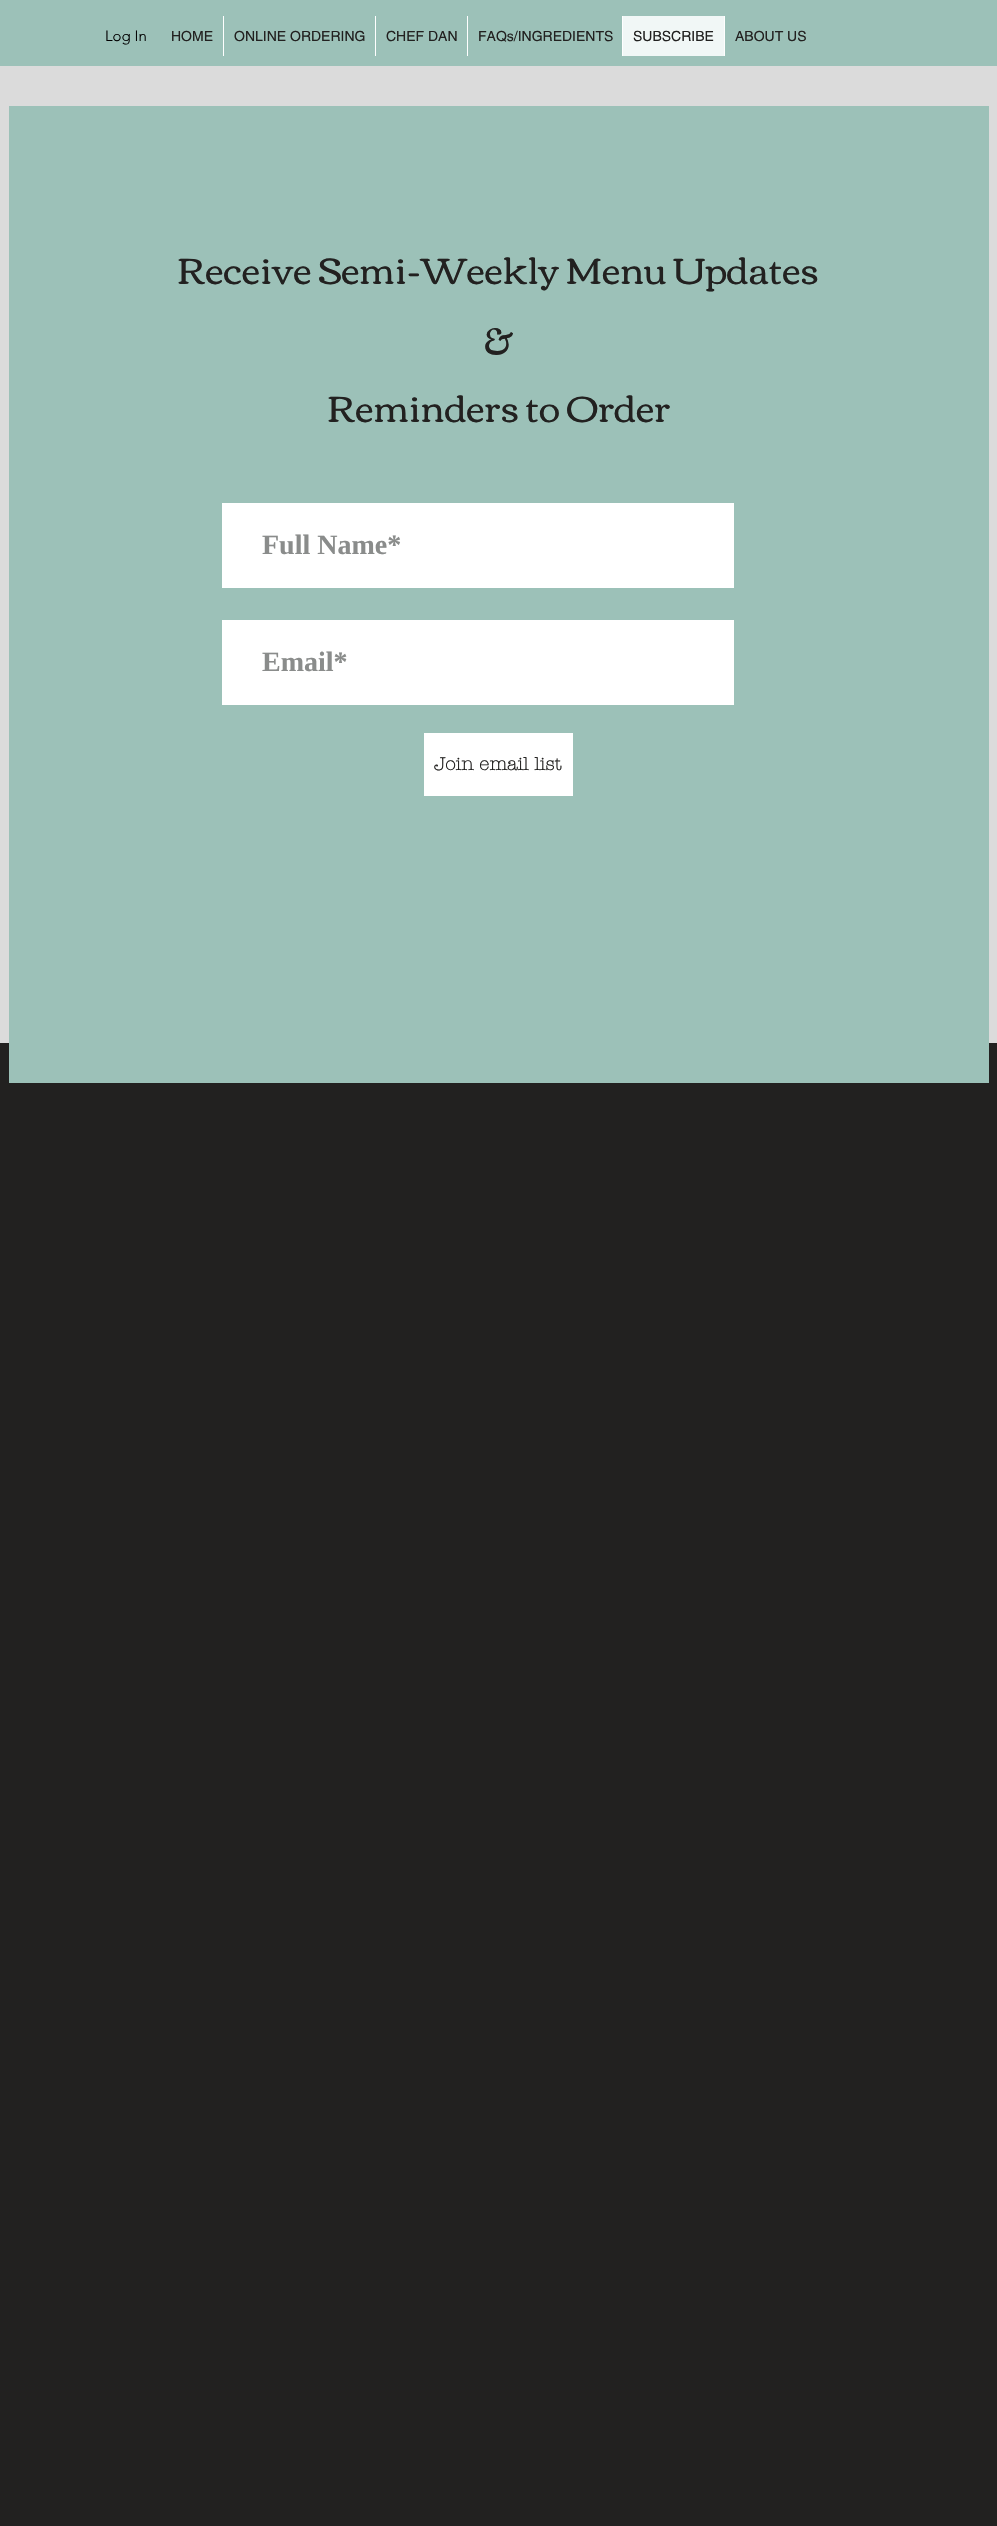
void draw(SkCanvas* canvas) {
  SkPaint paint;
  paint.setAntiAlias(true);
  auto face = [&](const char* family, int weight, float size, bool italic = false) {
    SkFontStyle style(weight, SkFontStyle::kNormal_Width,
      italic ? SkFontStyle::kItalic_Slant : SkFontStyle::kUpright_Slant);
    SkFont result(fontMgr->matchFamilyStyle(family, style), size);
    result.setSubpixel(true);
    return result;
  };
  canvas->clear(0xff222120);
  {
    const struct { float x, y, w, h; SkColor color; } items[] = {
      {0, 0, 997, 66, 0xff9cc1b8},
      {223, 16, 1, 40, 0xffffffff},
      {375, 16, 1, 40, 0xffffffff},
      {467, 16, 1, 40, 0xffffffff},
      {623, 16, 101, 40, 0xfff1f7f6},
      {622, 16, 1, 40, 0xffffffff},
      {724, 16, 1, 40, 0xffffffff},
      {0, 66, 997, 977, 0xffdbdbdb},
      {9, 106, 980, 977, 0xff9cc1b8},
      {222, 503, 512, 85, 0xffffffff},
      {222, 620, 512, 85, 0xffffffff},
      {424, 733, 149, 63, 0xffffffff},
    };
    for (auto [x, y, w, h, color] : items) {
      paint.setColor(color);
      canvas->drawRect(SkRect::MakeXYWH(x, y, w, h), paint);
    }
  }
  auto f0 = face("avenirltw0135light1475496", 300, 15);
  paint.setColor(0xff000000);
  canvas->drawString("Log In", 105, 41, f0, paint);
  auto f1 = face("helvetica", 400, 14);
  paint.setColor(0xff222120);
  {
    const struct { const char* s; float x, y; } items[] = {
      {"HOME", 171, 41},
      {"ONLINE ORDERING", 234, 41},
      {"CHEF DAN", 386, 41},
      {"FAQs/INGREDIENTS", 478, 41},
      {"SUBSCRIBE", 633, 41},
      {"ABOUT US", 735, 41},
    };
    for (auto [s, x, y] : items) {
      canvas->drawString(s, x, y, f1, paint);
    }
  }
  auto f2 = face("Corben", 400, 37);
  {
    const struct { const char* s; float x, y; } items[] = {
      {"Receive Semi-Weekly Menu Updates", 177, 284},
      {"&", 484, 353},
      {"Reminders to Order", 327, 422},
    };
    for (auto [s, x, y] : items) {
      canvas->drawString(s, x, y, f2, paint);
    }
  }
  auto f3 = face("Liberation Serif", 700, 28);
  paint.setColor(0xff8a8c8b);
  canvas->drawString("Full Name*", 262, 554, f3, paint);
  canvas->drawString("Email*", 262, 671, f3, paint);
  auto f4 = face("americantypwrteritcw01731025", 700, 18);
  paint.setColor(0xff222120);
  canvas->drawString("Join email list", 434, 770, f4, paint);
}
